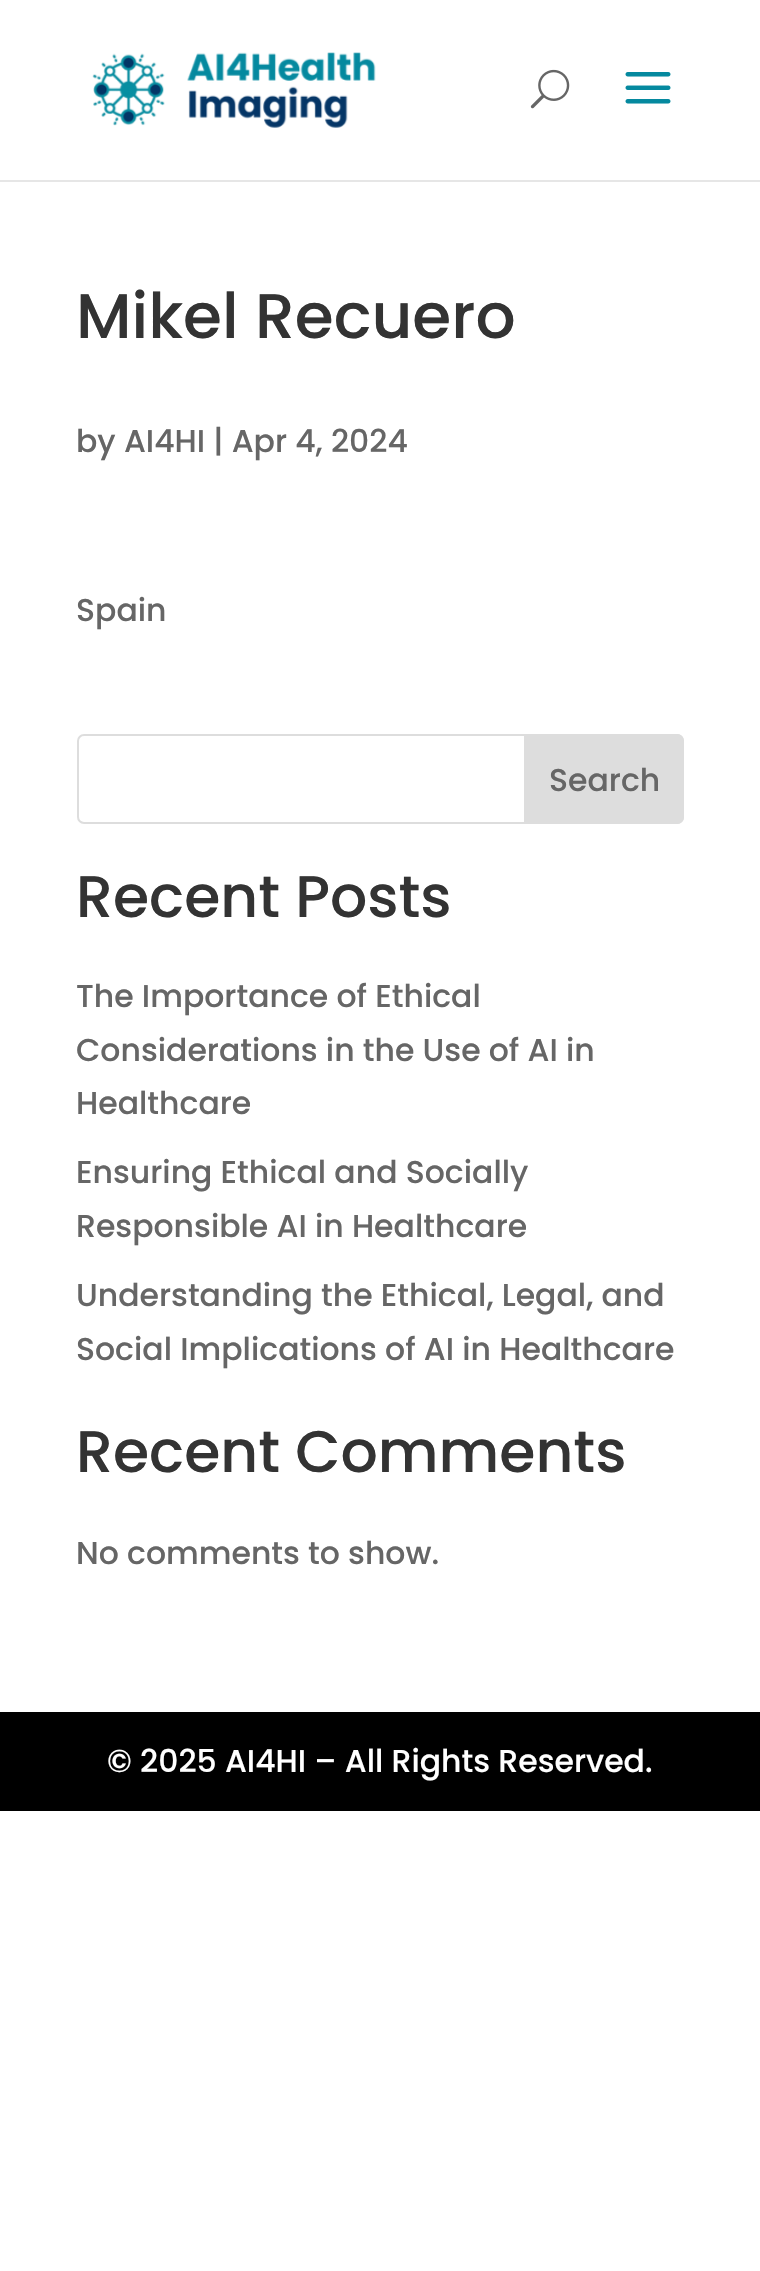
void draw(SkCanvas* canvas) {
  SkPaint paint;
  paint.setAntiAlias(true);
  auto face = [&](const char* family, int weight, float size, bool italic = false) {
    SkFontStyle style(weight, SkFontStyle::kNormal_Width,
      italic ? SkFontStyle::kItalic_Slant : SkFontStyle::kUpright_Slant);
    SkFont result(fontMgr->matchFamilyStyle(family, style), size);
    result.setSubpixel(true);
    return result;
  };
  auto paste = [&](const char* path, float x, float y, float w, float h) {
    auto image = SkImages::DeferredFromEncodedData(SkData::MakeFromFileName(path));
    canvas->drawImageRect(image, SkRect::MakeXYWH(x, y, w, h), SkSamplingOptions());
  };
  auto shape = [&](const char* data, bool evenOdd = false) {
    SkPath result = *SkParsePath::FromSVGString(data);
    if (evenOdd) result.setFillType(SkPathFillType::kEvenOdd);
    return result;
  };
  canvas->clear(0xffffffff);
  paint.setColor(0xffe6e6e6);
  canvas->drawPath(shape("M0 180V182H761V2H760V180Z"), paint);
  paste("img/1.png", 92, 52, 284, 76);
  paste("img/2.png", 530, 69, 40, 40);
  paste("img/3.png", 625, 72, 46, 32);
  paint.setStroke(true);
  paint.setStrokeWidth(2);
  paint.setColor(0xffdddddd);
  canvas->drawRoundRect(SkRect::MakeXYWH(78, 735, 605, 88), 6, 6, paint);
  paint.setStroke(false);
  canvas->drawPath(shape("M525 735H677C680.5 735 683 737.5 683 741V817C683 820.5 680.5 823 677 823H525Z"), paint);
  paint.setStroke(true);
  canvas->drawPath(shape("M525 735H677C680.5 735 683 737.5 683 741V817C683 820.5 680.5 823 677 823H525Z"), paint);
  paint.setStroke(false);
  paint.setColor(0xff000000);
  canvas->drawRect(SkRect::MakeXYWH(0, 1712, 760, 99), paint);
  auto f0 = face("Poppins", 500, 63);
  paint.setColor(0xff333333);
  canvas->drawString("Mikel Recuero", 76, 338, f0, paint);
  auto f1 = face("Poppins", 500, 31.5f);
  paint.setColor(0xff666666);
  {
    const struct { const char* s; float x, y; } items[] = {
      {"by AI4HI | Apr 4, 2024", 76, 452},
      {"Spain", 76, 621},
      {"Search", 549, 791},
    };
    for (auto [s, x, y] : items) {
      canvas->drawString(s, x, y, f1, paint);
    }
  }
  auto f2 = face("Poppins", 500, 58.5f);
  paint.setColor(0xff333333);
  canvas->drawString("Recent Posts", 76, 917, f2, paint);
  paint.setColor(0xff666666);
  {
    const struct { const char* s; float x, y; } items[] = {
      {"The Importance of Ethical", 76, 1007},
      {"Considerations in the Use of AI in", 76, 1061},
      {"Healthcare", 76, 1114},
      {"Ensuring Ethical and Socially", 76, 1183},
      {"Responsible AI in Healthcare", 76, 1237},
      {"Understanding the Ethical, Legal, and", 76, 1306},
      {"Social Implications of AI in Healthcare", 76, 1360},
    };
    for (auto [s, x, y] : items) {
      canvas->drawString(s, x, y, f1, paint);
    }
  }
  paint.setColor(0xff333333);
  canvas->drawString("Recent Comments", 76, 1472, f2, paint);
  paint.setColor(0xff666666);
  canvas->drawString("No comments to show.", 76, 1564, f1, paint);
  paint.setColor(0xffffffff);
  canvas->drawString("© 2025 AI4HI – All Rights Reserved.", 107, 1772, f1, paint);
}
